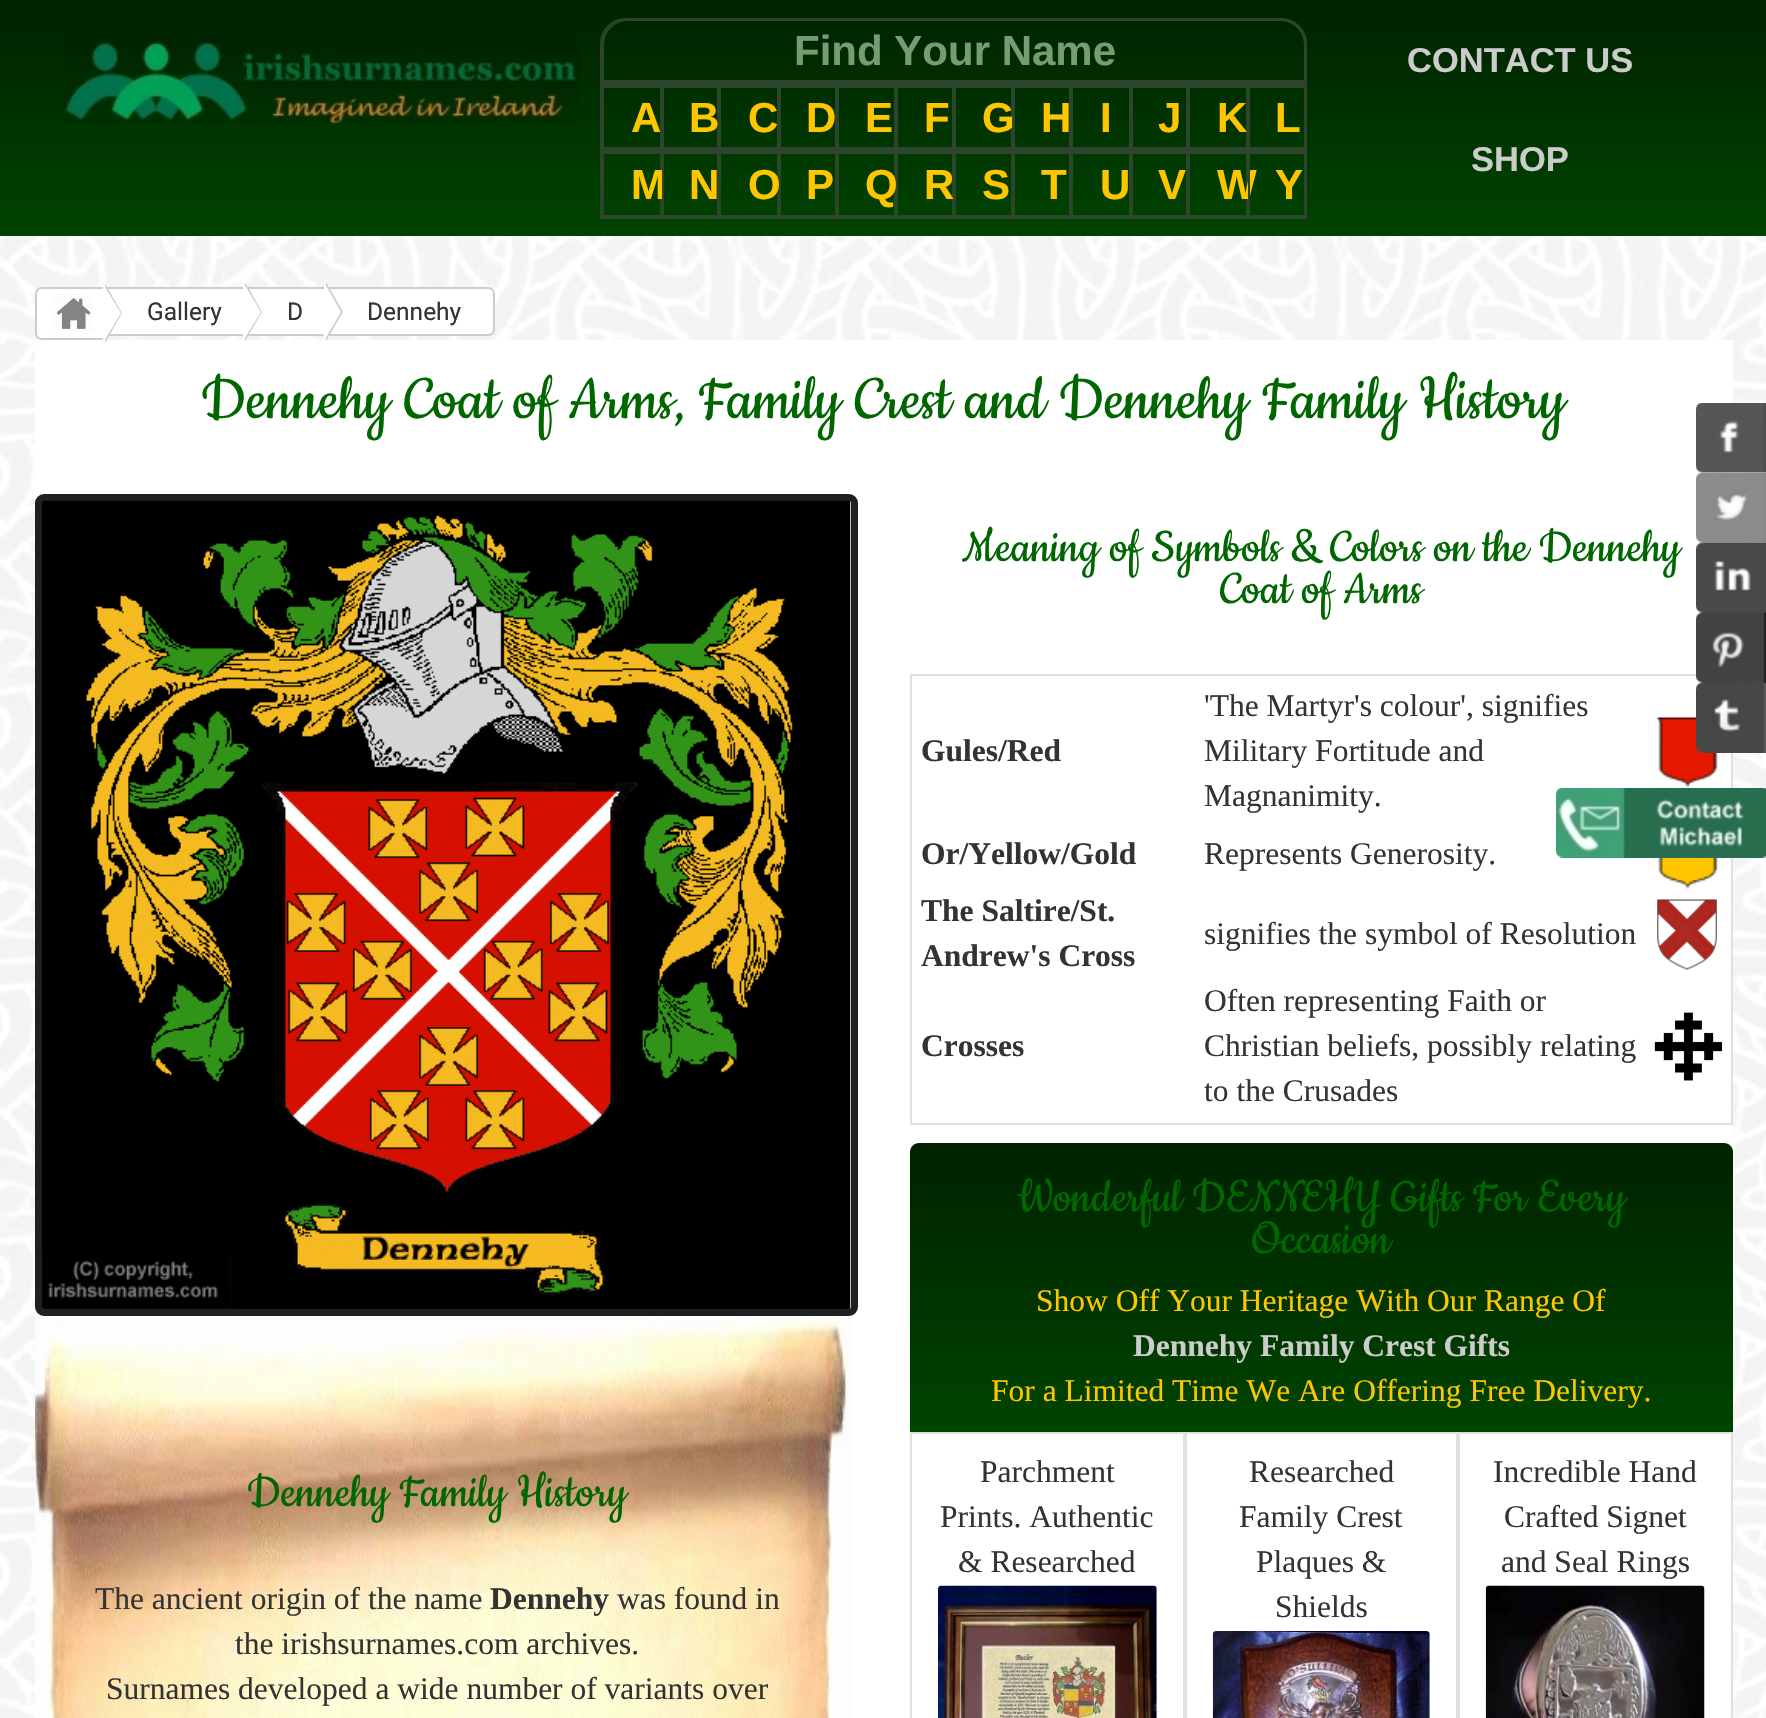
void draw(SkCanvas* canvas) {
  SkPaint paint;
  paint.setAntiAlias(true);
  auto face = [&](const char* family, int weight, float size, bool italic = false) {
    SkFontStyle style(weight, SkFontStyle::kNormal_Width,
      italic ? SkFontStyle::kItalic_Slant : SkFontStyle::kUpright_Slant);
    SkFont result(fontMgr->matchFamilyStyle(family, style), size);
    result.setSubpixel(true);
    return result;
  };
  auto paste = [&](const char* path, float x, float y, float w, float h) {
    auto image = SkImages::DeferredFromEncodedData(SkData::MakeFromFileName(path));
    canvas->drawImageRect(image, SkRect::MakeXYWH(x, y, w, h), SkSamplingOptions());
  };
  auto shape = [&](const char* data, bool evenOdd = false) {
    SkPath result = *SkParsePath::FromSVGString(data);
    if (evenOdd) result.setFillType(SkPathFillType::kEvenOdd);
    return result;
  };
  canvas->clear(0xffffffff);
  paste("img/1.png", 0, 236, 1766, 1482);
  {
    const SkColor colors[] = {0xff002200, 0xff004400};
    const float stops[] = {0, 1};
    const SkPoint ends[] = {{884, 0}, {884, 236}};
    paint.setShader(SkGradientShader::MakeLinear(ends, colors, stops, 2, SkTileMode::kClamp));
    paint.setAlpha(255);
  }
  canvas->drawRect(SkRect::MakeXYWH(0, 0, 1766, 236), paint);
  paste("img/2.png", 64, 35, 516, 90);
  paint.setStroke(true);
  paint.setStrokeWidth(2);
  paint.setShader(nullptr);
  paint.setColor(0xff2d442d);
  canvas->drawPath(shape("M626 19H1281C1295 19 1306 30 1306 44V83H601V44C601 30 612 19 626 19Z"), paint);
  canvas->drawPath(shape("M628 20H1280C1294 20 1305 31 1305 45V81H603V45C603 31 614 20 628 20Z"), paint);
  canvas->drawRect(SkRect::MakeXYWH(601, 85, 705, 65), paint);
  canvas->drawRect(SkRect::MakeXYWH(603, 87, 58, 61), paint);
  canvas->drawRect(SkRect::MakeXYWH(663, 87, 55, 61), paint);
  canvas->drawRect(SkRect::MakeXYWH(720, 87, 58, 61), paint);
  canvas->drawRect(SkRect::MakeXYWH(780, 87, 56, 61), paint);
  canvas->drawRect(SkRect::MakeXYWH(838, 87, 57, 61), paint);
  canvas->drawRect(SkRect::MakeXYWH(897, 87, 56, 61), paint);
  canvas->drawRect(SkRect::MakeXYWH(955, 87, 57, 61), paint);
  canvas->drawRect(SkRect::MakeXYWH(1014, 87, 56, 61), paint);
  canvas->drawRect(SkRect::MakeXYWH(1072, 87, 58, 61), paint);
  canvas->drawRect(SkRect::MakeXYWH(1132, 87, 55, 61), paint);
  canvas->drawRect(SkRect::MakeXYWH(1189, 87, 58, 61), paint);
  canvas->drawRect(SkRect::MakeXYWH(1249, 87, 56, 61), paint);
  canvas->drawRect(SkRect::MakeXYWH(601, 152, 705, 66), paint);
  canvas->drawRect(SkRect::MakeXYWH(603, 153, 58, 63), paint);
  canvas->drawRect(SkRect::MakeXYWH(720, 153, 58, 63), paint);
  canvas->drawRect(SkRect::MakeXYWH(780, 153, 56, 63), paint);
  canvas->drawRect(SkRect::MakeXYWH(838, 153, 57, 63), paint);
  canvas->drawRect(SkRect::MakeXYWH(897, 153, 56, 63), paint);
  canvas->drawRect(SkRect::MakeXYWH(955, 153, 57, 63), paint);
  canvas->drawRect(SkRect::MakeXYWH(1014, 153, 56, 63), paint);
  canvas->drawRect(SkRect::MakeXYWH(1072, 153, 58, 63), paint);
  canvas->drawRect(SkRect::MakeXYWH(1132, 153, 55, 63), paint);
  canvas->drawRect(SkRect::MakeXYWH(1189, 153, 58, 63), paint);
  paint.setStroke(false);
  paint.setColor(0xffffffff);
  canvas->drawPath(shape("M42 288H104V339H42C38.5 339 36 336.5 36 333V294C36 290.5 38.5 288 42 288Z"), paint);
  paint.setStroke(true);
  paint.setColor(0xffcccccc);
  canvas->drawPath(shape("M42 288H104V339H42C38.5 339 36 336.5 36 333V294C36 290.5 38.5 288 42 288Z"), paint);
  paint.setStroke(false);
  paint.setColor(0xffffffff);
  canvas->drawRect(SkRect::MakeXYWH(108, 289, 135, 45), paint);
  paint.setStroke(true);
  paint.setColor(0xffcccccc);
  canvas->drawRect(SkRect::MakeXYWH(104, 288, 140, 47), paint);
  paint.setStroke(false);
  paint.setColor(0xffffffff);
  canvas->drawRect(SkRect::MakeXYWH(35, 340, 1698, 1378), paint);
  paint.setColor(0xffcccccc);
  canvas->drawPath(shape("M105 343V284L122 313Z"), paint);
  paint.setColor(0xffffffff);
  canvas->drawPath(shape("M103 343V284L121 313Z"), paint);
  paste("img/3.png", 54, 294, 39, 38);
  canvas->drawRect(SkRect::MakeXYWH(249, 289, 75, 45), paint);
  paint.setStroke(true);
  paint.setColor(0xffcccccc);
  canvas->drawRect(SkRect::MakeXYWH(244, 288, 81, 47), paint);
  paint.setStroke(false);
  canvas->drawPath(shape("M245 341V282L262 312Z"), paint);
  paint.setColor(0xffffffff);
  canvas->drawPath(shape("M243 341V282L261 312Z"), paint);
  canvas->drawPath(shape("M325 288H488C491.5 288 494 290.5 494 294V329C494 332.5 491.5 335 488 335H325Z"), paint);
  paint.setStroke(true);
  paint.setColor(0xffcccccc);
  canvas->drawPath(shape("M325 288H488C491.5 288 494 290.5 494 294V329C494 332.5 491.5 335 488 335H325Z"), paint);
  paint.setStroke(false);
  canvas->drawPath(shape("M326 341V282L343 312Z"), paint);
  paint.setColor(0xffffffff);
  canvas->drawPath(shape("M324 341V282L341 312Z"), paint);
  paint.setStroke(true);
  paint.setStrokeWidth(7);
  paint.setColor(0xff202020);
  canvas->drawRoundRect(SkRect::MakeXYWH(38.5f, 497.5f, 816, 815), 5.5f, 5.5f, paint);
  paste("img/4.png", 42, 500, 809, 809);
  paste("img/5.png", 35, 1316, 817, 402);
  paint.setStrokeWidth(2);
  paint.setColor(0xffe1dfdf);
  canvas->drawRect(SkRect::MakeXYWH(911, 675, 821, 449), paint);
  paste("img/6.png", 1657, 717, 62, 71);
  paste("img/7.png", 1657, 858, 62, 31);
  paste("img/8.png", 1657, 899, 60, 71);
  paste("img/9.png", 1654, 1012, 68, 69);
  paint.setStroke(false);
  {
    const SkColor colors[] = {0xff002200, 0xff004400};
    const float stops[] = {0, 1};
    const SkPoint ends[] = {{1321, 1143}, {1321, 1432}};
    paint.setShader(SkGradientShader::MakeLinear(ends, colors, stops, 2, SkTileMode::kClamp));
    paint.setAlpha(255);
  }
  canvas->drawPath(shape("M919 1143H1724C1729 1143 1733 1147 1733 1152V1432H910V1152C910 1147 914 1143 919 1143Z"), paint);
  paint.setStroke(true);
  paint.setShader(nullptr);
  paint.setColor(0xffe1dfdf);
  canvas->drawRect(SkRect::MakeXYWH(911, 1433, 273, 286), paint);
  paste("img/10.png", 938, 1585, 219, 133);
  canvas->drawRect(SkRect::MakeXYWH(1186, 1433, 271, 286), paint);
  paste("img/11.png", 1212, 1631, 218, 87);
  canvas->drawRect(SkRect::MakeXYWH(1459, 1433, 273, 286), paint);
  paste("img/12.png", 1485, 1585, 220, 133);
  paste("img/13.png", 1696, 403, 70, 70);
  paste("img/14.png", 1696, 473, 70, 70);
  paste("img/15.png", 1696, 542, 70, 71);
  paste("img/16.png", 1696, 612, 70, 71);
  paste("img/17.png", 1696, 683, 70, 70);
  paste("img/18.png", 1556, 788, 210, 70);
  auto f0 = face("Liberation Sans", 700, 42);
  paint.setStroke(false);
  paint.setColor(0xff739e73);
  canvas->drawString("Find Your Name", 794, 65, f0, paint);
  paint.setColor(0xffffc600);
  {
    const struct { const char* s; float x, y; } items[] = {
      {"A", 631, 132},
      {"B", 689, 132},
      {"C", 748, 132},
      {"D", 806, 132},
      {"E", 865, 132},
      {"F", 924, 132},
      {"G", 982, 132},
      {"H", 1041, 132},
      {"I", 1100, 132},
      {"J", 1158, 132},
      {"K", 1217, 132},
      {"L", 1275, 132},
      {"M", 631, 199},
    };
    for (auto [s, x, y] : items) {
      canvas->drawString(s, x, y, f0, paint);
    }
  }
  paint.setStroke(true);
  paint.setColor(0xff2d442d);
  canvas->drawRect(SkRect::MakeXYWH(663, 153, 55, 63), paint);
  paint.setStroke(false);
  paint.setColor(0xffffc600);
  {
    const struct { const char* s; float x, y; } items[] = {
      {"N", 689, 199},
      {"O", 748, 199},
      {"P", 806, 199},
      {"Q", 865, 199},
      {"R", 924, 199},
      {"S", 982, 199},
      {"T", 1041, 199},
      {"U", 1100, 199},
      {"V", 1158, 199},
      {"W", 1217, 199},
    };
    for (auto [s, x, y] : items) {
      canvas->drawString(s, x, y, f0, paint);
    }
  }
  paint.setStroke(true);
  paint.setColor(0xff2d442d);
  canvas->drawRect(SkRect::MakeXYWH(1249, 153, 56, 63), paint);
  paint.setStroke(false);
  paint.setColor(0xffffc600);
  canvas->drawString("Y", 1275, 199, f0, paint);
  auto f1 = face("Liberation Sans", 700, 34.5f);
  paint.setColor(0xffcccccc);
  canvas->drawString("CONTACT US", 1407, 72, f1, paint);
  canvas->drawString("SHOP", 1471, 171, f1, paint);
  auto f2 = face("Roboto", 400, 24.5f);
  paint.setColor(0xff333333);
  {
    const struct { const char* s; float x, y; } items[] = {
      {"Gallery", 147, 320},
      {"D", 287, 320},
      {"Dennehy", 367, 320},
    };
    for (auto [s, x, y] : items) {
      canvas->drawString(s, x, y, f2, paint);
    }
  }
  auto f3 = face("Cookie", 400, 70);
  paint.setColor(0xff006600);
  canvas->drawString("Dennehy Coat of Arms, Family Crest and Dennehy Family History", 201, 418, f3, paint);
  auto f4 = face("Cookie", 400, 52.5f);
  canvas->drawString("Dennehy Family History", 247, 1506, f4, paint);
  auto f5 = face("Liberation Serif", 400, 31.5f);
  paint.setColor(0xff333333);
  canvas->drawString("The ancient origin of the name", 95, 1609, f5, paint);
  auto f6 = face("Liberation Serif", 700, 31.5f);
  canvas->drawString("Dennehy", 490, 1609, f6, paint);
  {
    const struct { const char* s; float x, y; } items[] = {
      {"was found in", 617, 1609},
      {"the irishsurnames.com archives.", 235, 1654},
      {"Surnames developed a wide number of variants over", 106, 1699},
    };
    for (auto [s, x, y] : items) {
      canvas->drawString(s, x, y, f5, paint);
    }
  }
  paint.setColor(0xff006600);
  canvas->drawString("Meaning of Symbols & Colors on the Dennehy", 962, 561, f4, paint);
  canvas->drawString("Coat of Arms", 1220, 603, f4, paint);
  paint.setColor(0xff333333);
  canvas->drawString("Gules/Red", 921, 761, f6, paint);
  {
    const struct { const char* s; float x, y; } items[] = {
      {"'The Martyr's colour', signifies", 1204, 716},
      {"Military Fortitude and", 1204, 761},
      {"Magnanimity.", 1204, 806},
    };
    for (auto [s, x, y] : items) {
      canvas->drawString(s, x, y, f5, paint);
    }
  }
  canvas->drawString("Or/Yellow/Gold", 921, 864, f6, paint);
  canvas->drawString("Represents Generosity.", 1204, 864, f5, paint);
  canvas->drawString("The Saltire/St.", 921, 921, f6, paint);
  canvas->drawString("Andrew's Cross", 921, 966, f6, paint);
  canvas->drawString("signifies the symbol of Resolution", 1204, 944, f5, paint);
  canvas->drawString("Crosses", 921, 1056, f6, paint);
  {
    const struct { const char* s; float x, y; } items[] = {
      {"Often representing Faith or", 1204, 1011},
      {"Christian beliefs, possibly relating", 1204, 1056},
      {"to the Crusades", 1204, 1101},
    };
    for (auto [s, x, y] : items) {
      canvas->drawString(s, x, y, f5, paint);
    }
  }
  paint.setColor(0xff006600);
  canvas->drawString("Wonderful DENNEHY Gifts For Every", 1017, 1211, f4, paint);
  canvas->drawString("Occasion", 1251, 1253, f4, paint);
  paint.setColor(0xffffc600);
  canvas->drawString("Show Off Your Heritage With Our Range Of", 1036, 1311, f5, paint);
  paint.setColor(0xffcccccc);
  canvas->drawString("Dennehy Family Crest Gifts", 1133, 1356, f6, paint);
  paint.setColor(0xffffc600);
  canvas->drawString("For a Limited Time We Are Offering Free Delivery.", 991, 1401, f5, paint);
  paint.setColor(0xff333333);
  {
    const struct { const char* s; float x, y; } items[] = {
      {"Parchment", 980, 1482},
      {"Prints. Authentic", 940, 1527},
      {"& Researched", 958, 1572},
      {"Researched", 1249, 1482},
      {"Family Crest", 1239, 1527},
      {"Plaques &", 1256, 1572},
      {"Shields", 1275, 1617},
      {"Incredible Hand", 1493, 1482},
      {"Crafted Signet", 1504, 1527},
      {"and Seal Rings", 1501, 1572},
    };
    for (auto [s, x, y] : items) {
      canvas->drawString(s, x, y, f5, paint);
    }
  }
}
